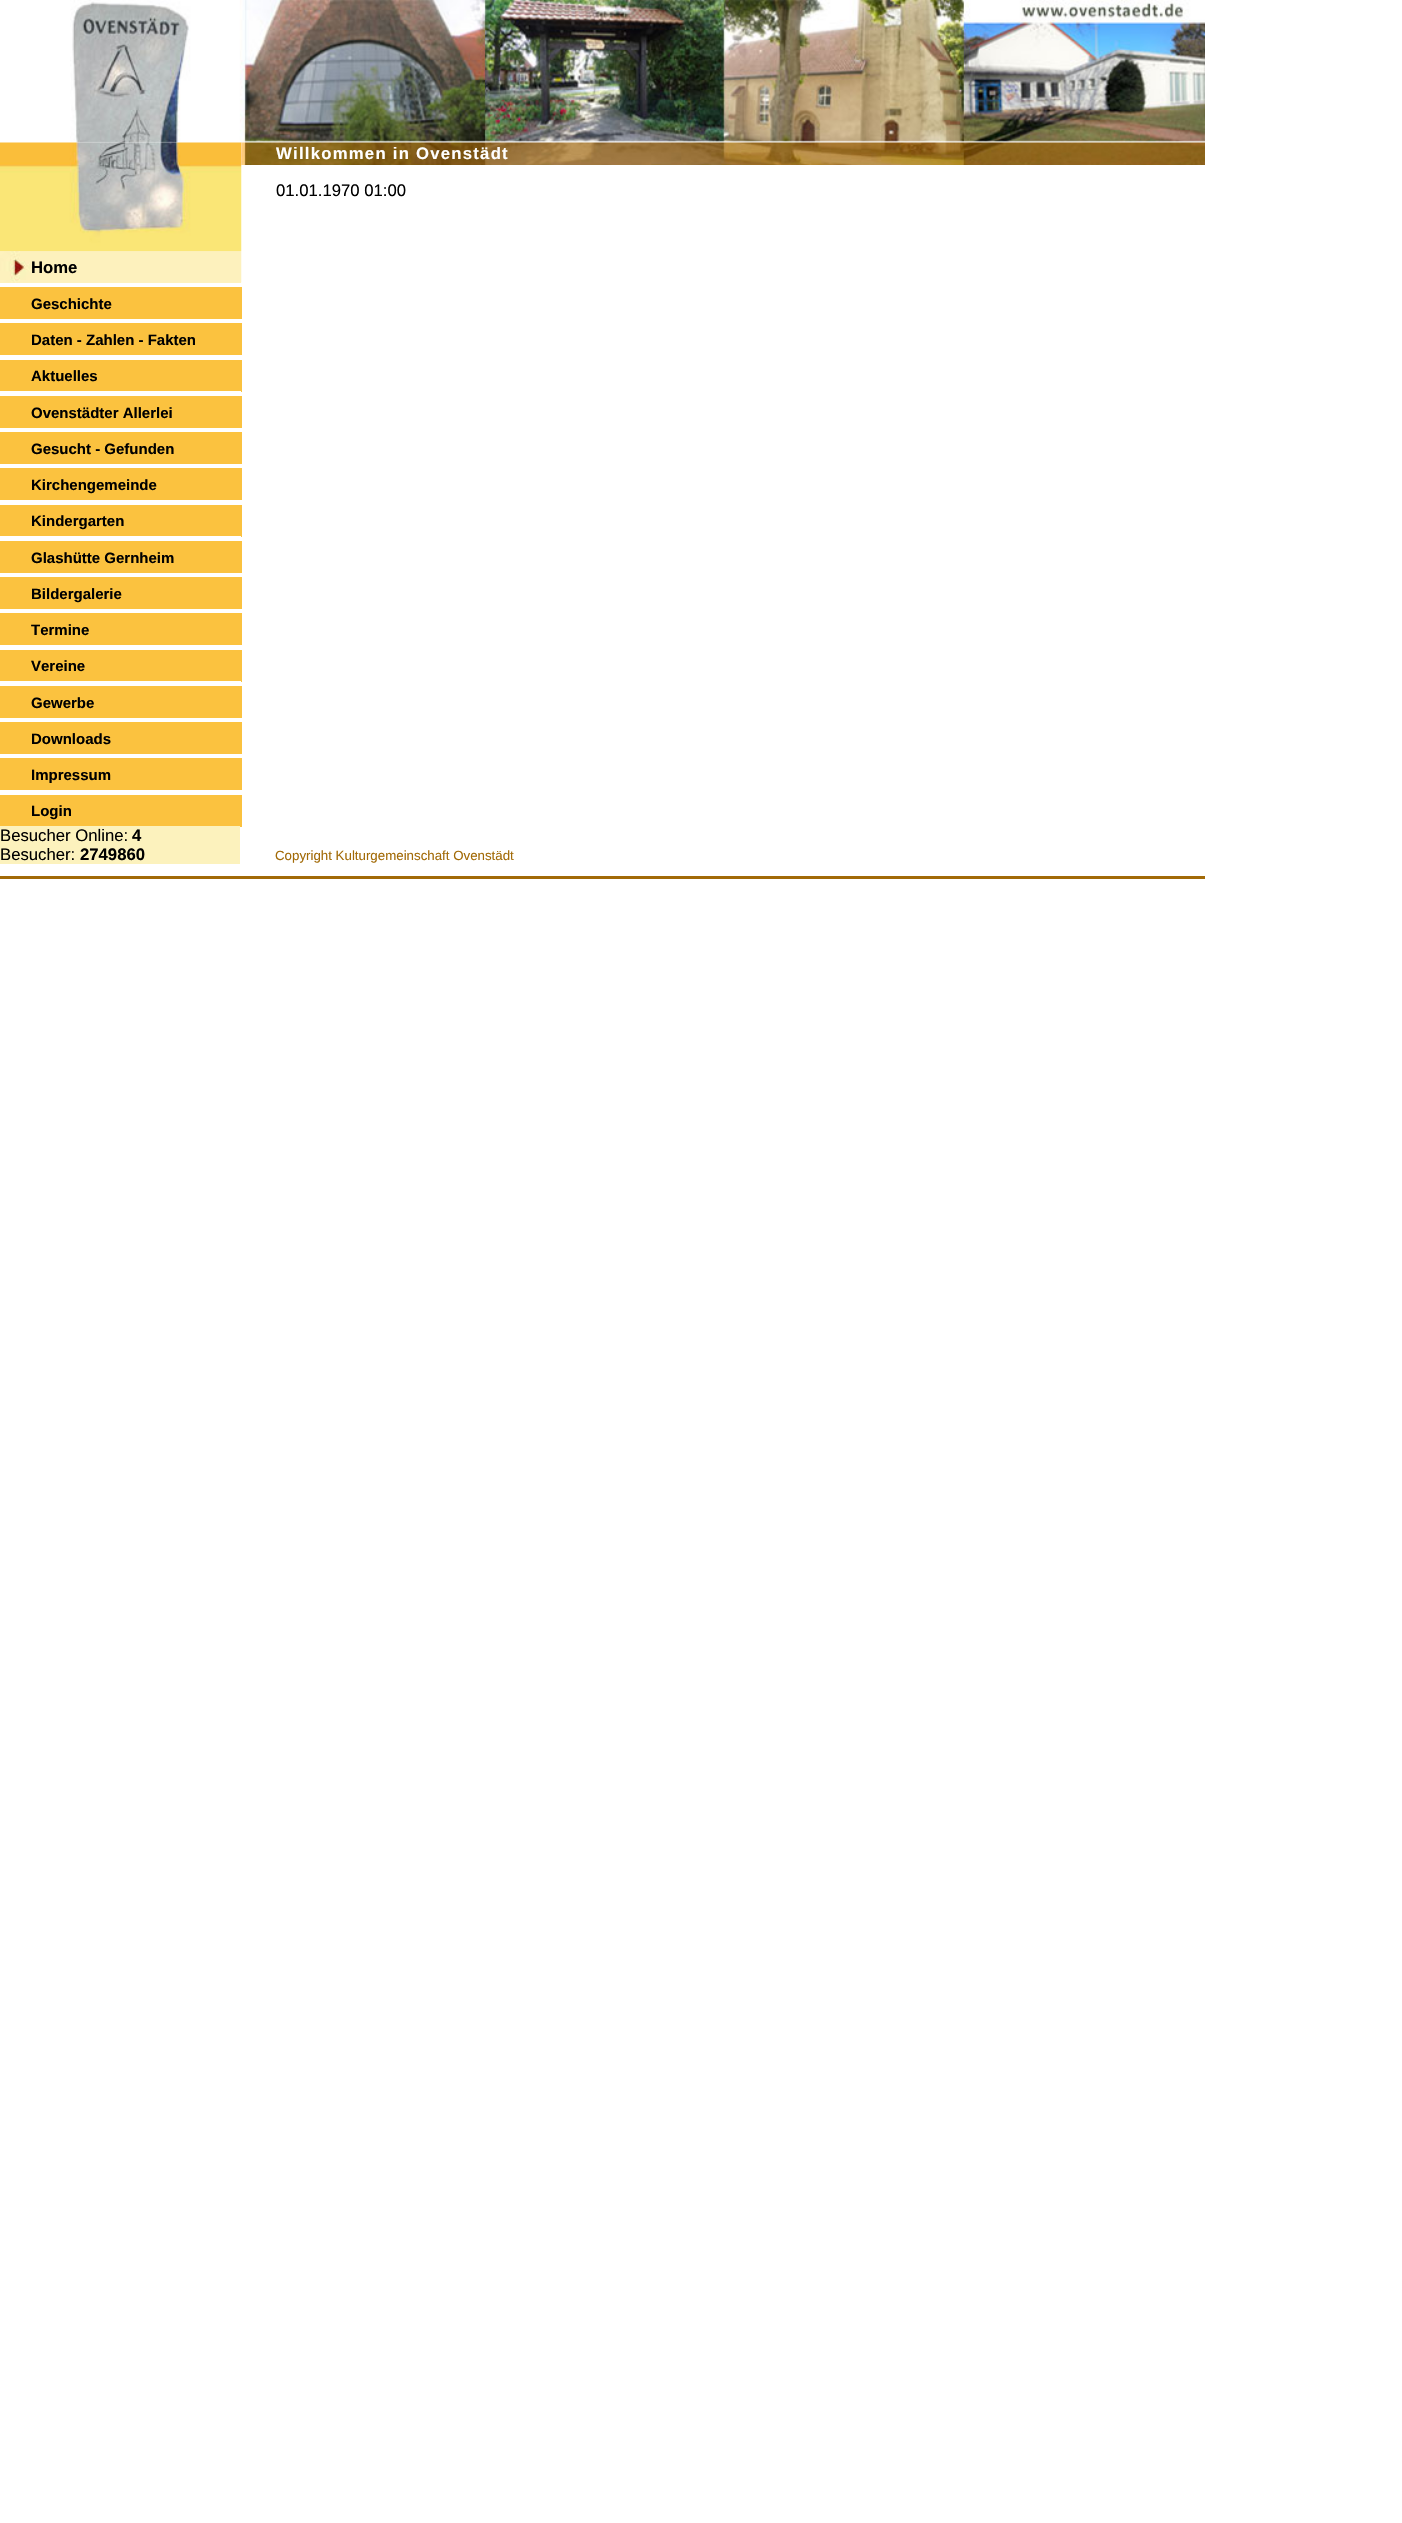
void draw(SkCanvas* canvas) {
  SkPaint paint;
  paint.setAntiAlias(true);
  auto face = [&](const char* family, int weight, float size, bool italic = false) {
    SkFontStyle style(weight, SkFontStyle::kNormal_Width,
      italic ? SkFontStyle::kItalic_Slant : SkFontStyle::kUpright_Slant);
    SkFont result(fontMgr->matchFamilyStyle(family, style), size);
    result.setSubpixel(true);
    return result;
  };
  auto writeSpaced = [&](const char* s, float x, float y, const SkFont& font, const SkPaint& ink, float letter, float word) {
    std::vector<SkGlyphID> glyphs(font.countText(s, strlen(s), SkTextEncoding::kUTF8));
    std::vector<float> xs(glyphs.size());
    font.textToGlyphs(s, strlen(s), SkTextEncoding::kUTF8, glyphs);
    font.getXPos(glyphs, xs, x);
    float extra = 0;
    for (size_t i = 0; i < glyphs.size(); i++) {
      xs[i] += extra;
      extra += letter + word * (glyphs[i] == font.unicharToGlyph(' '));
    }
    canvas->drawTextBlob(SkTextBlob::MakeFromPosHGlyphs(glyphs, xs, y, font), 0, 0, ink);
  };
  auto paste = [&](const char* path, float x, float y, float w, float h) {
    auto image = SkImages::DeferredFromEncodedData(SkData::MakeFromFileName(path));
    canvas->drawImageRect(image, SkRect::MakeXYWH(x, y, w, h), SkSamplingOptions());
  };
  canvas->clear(0xffffffff);
  paste("img/1.png", 70, 0, 1135, 143);
  paste("img/2.png", 0, 142, 242, 23);
  paste("img/3.png", 241, 142, 964, 23);
  paint.setColor(0xfffcf2bd);
  canvas->drawRect(SkRect::MakeXYWH(0, 251, 241, 32), paint);
  paste("img/4.png", 0, 165, 242, 87);
  paste("img/5.png", 0, 251, 242, 32);
  {
    const struct { float x, y, w, h; SkColor color; } items[] = {
      {0, 287, 242, 32, 0xfffbc23f},
      {0, 323, 242, 32, 0xfffbc23f},
      {0, 360, 242, 32, 0xfffbc23f},
      {0, 391, 241, 1, 0xffffffff},
      {0, 396, 242, 32, 0xfffbc23f},
      {0, 432, 242, 32, 0xfffbc23f},
      {0, 468, 242, 32, 0xfffbc23f},
      {0, 505, 242, 32, 0xfffbc23f},
      {0, 536, 241, 1, 0xffffffff},
      {0, 541, 242, 32, 0xfffbc23f},
      {0, 577, 242, 32, 0xfffbc23f},
      {0, 613, 242, 32, 0xfffbc23f},
      {0, 650, 242, 32, 0xfffbc23f},
      {0, 681, 241, 1, 0xffffffff},
      {0, 686, 242, 32, 0xfffbc23f},
      {0, 722, 242, 32, 0xfffbc23f},
      {0, 758, 242, 32, 0xfffbc23f},
      {0, 795, 242, 32, 0xfffbc23f},
      {0, 826, 240, 38, 0xfffcf2bd},
      {0, 876, 1205, 3, 0xffa26a07},
    };
    for (auto [x, y, w, h, color] : items) {
      paint.setColor(color);
      canvas->drawRect(SkRect::MakeXYWH(x, y, w, h), paint);
    }
  }
  auto f0 = face("Liberation Sans", 700, 16.7f);
  paint.setColor(0xffffffff);
  writeSpaced("Willkommen in Ovenstädt", 276, 159, f0, paint, 1.25f, 0);
  auto f1 = face("Liberation Sans", 400, 16.7f);
  paint.setColor(0xff000000);
  canvas->drawString("01.01.1970 01:00", 276, 196, f1, paint);
  canvas->drawString("Home", 31, 273, f0, paint);
  auto f2 = face("Liberation Sans", 700, 15);
  {
    const struct { const char* s; float x, y; } items[] = {
      {"Geschichte", 31, 309},
      {"Daten - Zahlen - Fakten", 31, 345},
      {"Aktuelles", 31, 381},
      {"Ovenstädter Allerlei", 31, 418},
      {"Gesucht - Gefunden", 31, 454},
      {"Kirchengemeinde", 31, 490},
      {"Kindergarten", 31, 526},
      {"Glashütte Gernheim", 31, 563},
      {"Bildergalerie", 31, 599},
      {"Termine", 31, 635},
      {"Vereine", 31, 671},
      {"Gewerbe", 31, 708},
      {"Downloads", 31, 744},
      {"Impressum", 31, 780},
      {"Login", 31, 816},
    };
    for (auto [s, x, y] : items) {
      canvas->drawString(s, x, y, f2, paint);
    }
  }
  canvas->drawString("Besucher Online:", 0, 841, f1, paint);
  canvas->drawString("4", 132, 841, f0, paint);
  canvas->drawString("Besucher:", 0, 860, f1, paint);
  canvas->drawString("2749860", 80, 860, f0, paint);
  auto f3 = face("Liberation Sans", 400, 13.3f);
  paint.setColor(0xffa26a07);
  canvas->drawString("Copyright Kulturgemeinschaft Ovenstädt", 275, 860, f3, paint);
}
